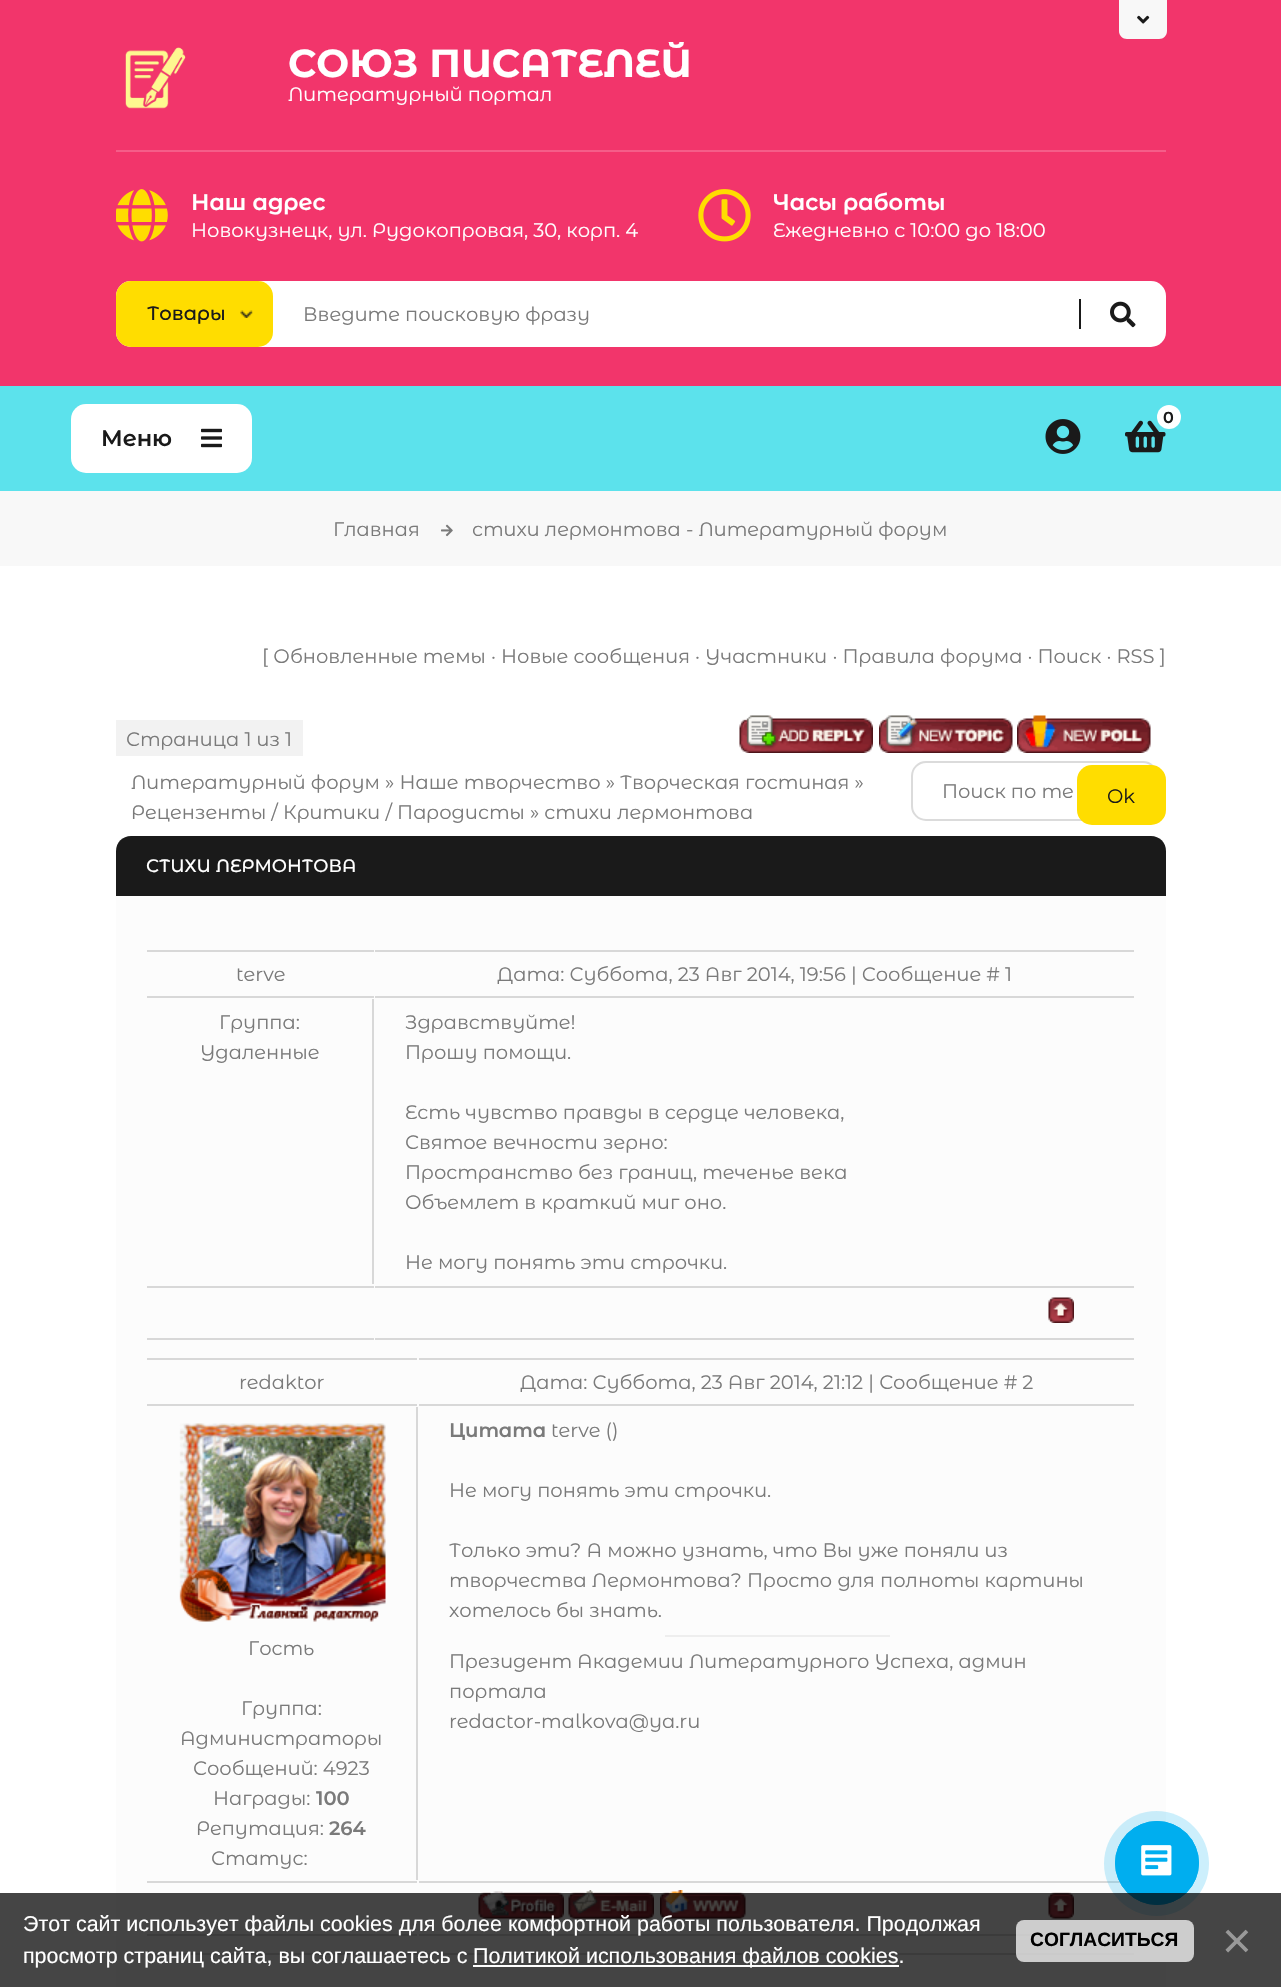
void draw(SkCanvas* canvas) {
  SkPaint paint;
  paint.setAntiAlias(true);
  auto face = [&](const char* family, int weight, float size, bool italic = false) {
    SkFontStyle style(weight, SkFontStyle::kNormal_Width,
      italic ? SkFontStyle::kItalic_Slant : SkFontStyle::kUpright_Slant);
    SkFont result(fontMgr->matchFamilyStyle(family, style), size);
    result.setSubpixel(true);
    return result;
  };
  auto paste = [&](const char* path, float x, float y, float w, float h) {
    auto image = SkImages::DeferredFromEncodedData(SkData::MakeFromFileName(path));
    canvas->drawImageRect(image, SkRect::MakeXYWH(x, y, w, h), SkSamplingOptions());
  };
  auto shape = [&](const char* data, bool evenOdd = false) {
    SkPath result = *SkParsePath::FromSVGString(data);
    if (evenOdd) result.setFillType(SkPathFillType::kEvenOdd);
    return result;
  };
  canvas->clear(0xffffffff);
  paint.setColor(0xfff2356b);
  canvas->drawRect(SkRect::MakeXYWH(0, 0, 1281, 386), paint);
  paint.setColor(0xfff8f8f8);
  canvas->drawPath(shape("M1119 0H1167V31C1167 35.5 1163.5 39 1159 39H1127C1122.5 39 1119 35.5 1119 31Z"), paint);
  paste("img/1.png", 1137, 15, 13, 9);
  paint.setColor(0xfff55d89);
  canvas->drawRect(SkRect::MakeXYWH(116, 150, 1050, 2), paint);
  paste("img/2.png", 125, 47, 61, 62);
  paste("img/3.png", 116, 189, 52, 53);
  paste("img/4.png", 698, 189, 53, 53);
  paint.setColor(0xffffffff);
  canvas->drawRoundRect(SkRect::MakeXYWH(116, 281, 1050, 66), 15, 15, paint);
  paint.setColor(0xffffdd00);
  canvas->drawRoundRect(SkRect::MakeXYWH(116, 281, 157, 66), 15, 15, paint);
  paste("img/5.png", 240, 310, 13, 8);
  paint.setColor(0xff1a1a1a);
  canvas->drawRect(SkRect::MakeXYWH(1079, 299, 2, 30), paint);
  paste("img/6.png", 1110, 301, 26, 27);
  paint.setColor(0xff5ce2ec);
  canvas->drawRect(SkRect::MakeXYWH(0, 386, 1281, 105), paint);
  paste("img/7.png", 1125, 420, 41, 33);
  paint.setColor(0xffffffff);
  canvas->drawCircle(1169, 417, 12, paint);
  canvas->drawRoundRect(SkRect::MakeXYWH(71, 404, 181, 69), 15, 15, paint);
  paste("img/8.png", 201, 428, 21, 20);
  paste("img/9.png", 1045, 419, 36, 35);
  paint.setColor(0xfff8f8f8);
  canvas->drawRect(SkRect::MakeXYWH(0, 491, 1281, 75), paint);
  paste("img/10.png", 441, 524, 12, 13);
  paint.setColor(0xfff2f2f2);
  canvas->drawRect(SkRect::MakeXYWH(116, 720, 187, 36), paint);
  paste("img/11.png", 739, 715, 134, 38);
  paste("img/12.png", 879, 715, 134, 38);
  paste("img/13.png", 1017, 715, 134, 38);
  paint.setStroke(true);
  paint.setStrokeWidth(2);
  paint.setColor(0xffdbdbdb);
  canvas->drawRoundRect(SkRect::MakeXYWH(912, 762, 245, 58), 14, 14, paint);
  paint.setStroke(false);
  paint.setColor(0xffffdd00);
  canvas->drawRoundRect(SkRect::MakeXYWH(1077, 765, 89, 60), 15, 15, paint);
  paint.setColor(0xfffcfcfc);
  canvas->drawRoundRect(SkRect::MakeXYWH(116, 836, 1050, 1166), 15, 15, paint);
  paint.setColor(0xff1a1a1a);
  canvas->drawPath(shape("M131 836H1151C1159.5 836 1166 842.5 1166 851V896H116V851C116 842.5 122.5 836 131 836Z"), paint);
  {
    const struct { float x, y, w, h; SkColor color; } items[] = {
      {147, 950, 227, 2, 0xffd8d8d8},
      {147, 996, 227, 2, 0xffd8d8d8},
      {375, 950, 759, 2, 0xffd8d8d8},
      {375, 996, 759, 2, 0xffd8d8d8},
      {372, 999, 2, 285, 0xffd8d8d8},
      {147, 1286, 227, 2, 0xffd8d8d8},
      {147, 1338, 227, 2, 0xffd8d8d8},
      {375, 1286, 759, 2, 0xffd8d8d8},
      {375, 1338, 759, 2, 0xffd8d8d8},
    };
    for (auto [x, y, w, h, color] : items) {
      paint.setColor(color);
      canvas->drawRect(SkRect::MakeXYWH(x, y, w, h), paint);
    }
  }
  paste("img/14.png", 1048, 1297, 26, 26);
  {
    const struct { float x, y, w, h; SkColor color; } items[] = {
      {147, 1358, 270, 2, 0xffd8d8d8},
      {147, 1404, 270, 2, 0xffd8d8d8},
      {419, 1358, 715, 2, 0xffd8d8d8},
      {419, 1404, 715, 2, 0xffd8d8d8},
      {665, 1635, 225, 2, 0xffeeeeee},
      {416, 1407, 2, 473, 0xffd8d8d8},
    };
    for (auto [x, y, w, h, color] : items) {
      paint.setColor(color);
      canvas->drawRect(SkRect::MakeXYWH(x, y, w, h), paint);
    }
  }
  paste("img/15.png", 179, 1423, 207, 199);
  {
    const struct { float x, y, w, h; SkColor color; } items[] = {
      {147, 1881, 270, 2, 0xffd8d8d8},
      {147, 1934, 270, 2, 0xffd8d8d8},
      {419, 1881, 701, 2, 0xffd8d8d8},
      {419, 1934, 715, 2, 0xffd8d8d8},
    };
    for (auto [x, y, w, h, color] : items) {
      paint.setColor(color);
      canvas->drawRect(SkRect::MakeXYWH(x, y, w, h), paint);
    }
  }
  paste("img/16.png", 478, 1891, 86, 28);
  paste("img/17.png", 568, 1890, 86, 29);
  paste("img/18.png", 660, 1890, 86, 29);
  paste("img/19.png", 1048, 1892, 26, 27);
  canvas->drawRect(SkRect::MakeXYWH(147, 1953, 227, 2), paint);
  canvas->drawRect(SkRect::MakeXYWH(375, 1953, 759, 2), paint);
  paint.setColor(0x3300aeef);
  canvas->drawCircle(1156.5f, 1863.5f, 52.5f, paint);
  paint.setStroke(true);
  paint.setStrokeWidth(1);
  paint.setColor(0xff00aeef);
  canvas->drawCircle(1157, 1863, 41.5f, paint);
  paint.setStroke(false);
  canvas->drawCircle(1157, 1863, 42, paint);
  paste("img/20.png", 1141, 1845, 31, 31);
  paint.setColor(0xba000000);
  canvas->drawRect(SkRect::MakeXYWH(0, 1893, 1281, 94), paint);
  paint.setColor(0xffffffff);
  canvas->drawRect(SkRect::MakeXYWH(473, 1965, 426, 2), paint);
  paint.setColor(0xbaffffff);
  canvas->drawRoundRect(SkRect::MakeXYWH(1016, 1920, 178, 42), 8, 8, paint);
  auto f0 = face("Montserrat Alternates", 700, 39);
  paint.setColor(0xffffffff);
  canvas->drawString("СОЮЗ ПИСАТЕЛЕЙ", 288, 77, f0, paint);
  auto f1 = face("Montserrat Alternates", 400, 19.5f);
  canvas->drawString("Литературный портал", 288, 101, f1, paint);
  auto f2 = face("Montserrat Alternates", 600, 22.5f);
  canvas->drawString("Наш адрес", 191, 210, f2, paint);
  canvas->drawString("Новокузнецк, ул. Рудокопровая, 30, корп. 4", 191, 237, f1, paint);
  canvas->drawString("Часы работы", 773, 210, f2, paint);
  canvas->drawString("Ежедневно с 10:00 до 18:00", 773, 237, f1, paint);
  auto f3 = face("Montserrat Alternates", 500, 19.5f);
  paint.setColor(0xff1a1a1a);
  canvas->drawString("Товары", 147, 320, f3, paint);
  paint.setColor(0xff7a7a7a);
  canvas->drawString("Введите поисковую фразу", 303, 321, f1, paint);
  auto f4 = face("Montserrat Alternates", 600, 16);
  paint.setColor(0xff1a1a1a);
  canvas->drawString("0", 1163, 423, f4, paint);
  canvas->drawString("Меню", 101, 446, f2, paint);
  paint.setColor(0xff7a7a7a);
  {
    const struct { const char* s; float x, y; } items[] = {
      {"Главная", 333, 536},
      {"стихи лермонтова - Литературный форум", 472, 536},
      {"[ Обновленные темы · Новые сообщения · Участники · Правила форума · Поиск · RSS ]", 262, 663},
      {"Страница 1 из 1", 126, 746},
      {"Литературный форум » Наше творчество » Творческая гостиная »", 131, 789},
      {"Рецензенты / Критики / Пародисты » стихи лермонтова", 131, 819},
      {"Поиск по те", 942, 798},
    };
    for (auto [s, x, y] : items) {
      canvas->drawString(s, x, y, f1, paint);
    }
  }
  paint.setColor(0xff1a1a1a);
  canvas->drawString("Ok", 1107, 803, f1, paint);
  auto f5 = face("Montserrat Alternates", 500, 18);
  paint.setColor(0xffffffff);
  canvas->drawString("СТИХИ ЛЕРМОНТОВА", 146, 872, f5, paint);
  paint.setColor(0xff7a7a7a);
  {
    const struct { const char* s; float x, y; } items[] = {
      {"terve", 236, 981},
      {"Дата: Суббота, 23 Авг 2014, 19:56 | Сообщение # 1", 497, 981},
      {"Группа:", 219, 1029},
      {"Удаленные", 200, 1059},
      {"Здравствуйте!", 405, 1029},
      {"Прошу помощи.", 405, 1059},
      {"Есть чувство правды в сердце человека,", 405, 1119},
      {"Святое вечности зерно:", 405, 1149},
      {"Пространство без границ, теченье века", 405, 1179},
      {"Объемлет в краткий миг оно.", 405, 1209},
      {"Не могу понять эти строчки.", 405, 1269},
      {"redaktor", 239, 1389},
      {"Дата: Суббота, 23 Авг 2014, 21:12 | Сообщение # 2", 520, 1389},
    };
    for (auto [s, x, y] : items) {
      canvas->drawString(s, x, y, f1, paint);
    }
  }
  auto f6 = face("Montserrat Alternates", 600, 19.5f);
  canvas->drawString("Цитата", 449, 1437, f6, paint);
  {
    const struct { const char* s; float x, y; } items[] = {
      {"terve ()", 551, 1437},
      {"Не могу понять эти строчки.", 449, 1497},
      {"Только эти? А можно узнать, что Вы уже поняли из", 449, 1557},
      {"творчества Лермонтова? Просто для полноты картины", 449, 1587},
      {"хотелось бы знать.", 449, 1617},
      {"Президент Академии Литературного Успеха, админ", 449, 1668},
      {"портала", 449, 1698},
      {"redactor-malkova@ya.ru", 449, 1728},
      {"Гость", 248, 1655},
      {"Группа:", 241, 1715},
      {"Администраторы", 180, 1745},
      {"Сообщений: 4923", 193, 1775},
      {"Награды:", 213, 1805},
    };
    for (auto [s, x, y] : items) {
      canvas->drawString(s, x, y, f1, paint);
    }
  }
  canvas->drawString("100", 316, 1805, f6, paint);
  canvas->drawString("Репутация:", 196, 1835, f1, paint);
  canvas->drawString("264", 329, 1835, f6, paint);
  canvas->drawString("Статус:", 211, 1865, f1, paint);
  auto f7 = face("Liberation Sans", 400, 21.45f);
  paint.setColor(0xffffffff);
  {
    const struct { const char* s; float x, y; } items[] = {
      {"Этот сайт использует файлы cookies для более комфортной работы пользователя. Продолжая", 23, 1931},
      {"просмотр страниц сайта, вы соглашаетесь с", 23, 1963},
      {"Политикой использования файлов cookies.", 473, 1963},
    };
    for (auto [s, x, y] : items) {
      canvas->drawString(s, x, y, f7, paint);
    }
  }
  auto f8 = face("Liberation Sans", 700, 19.25f);
  paint.setColor(0xff000000);
  canvas->drawString("СОГЛАСИТЬСЯ", 1030, 1946, f8, paint);
  auto f9 = face("Liberation Sans", 400, 51);
  paint.setColor(0xff999999);
  canvas->drawString("×", 1222, 1958, f9, paint);
}
